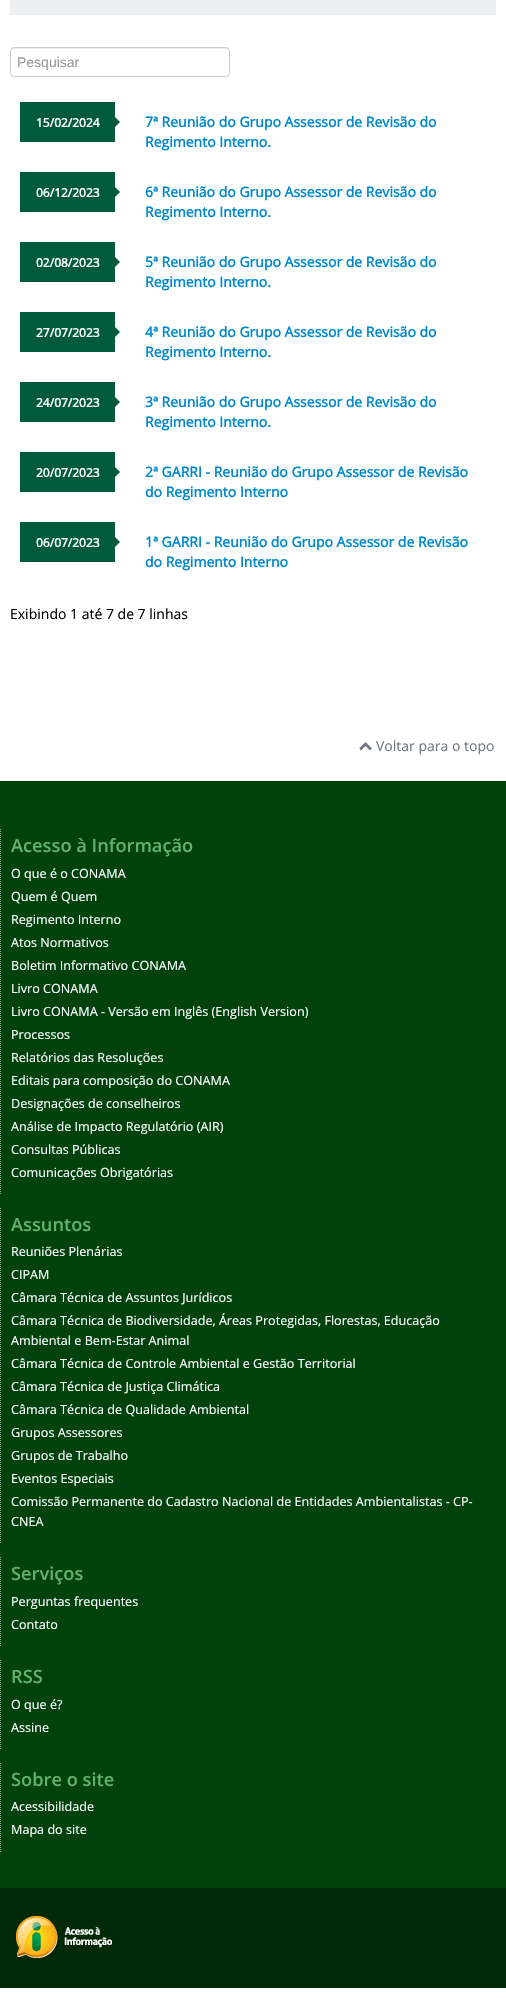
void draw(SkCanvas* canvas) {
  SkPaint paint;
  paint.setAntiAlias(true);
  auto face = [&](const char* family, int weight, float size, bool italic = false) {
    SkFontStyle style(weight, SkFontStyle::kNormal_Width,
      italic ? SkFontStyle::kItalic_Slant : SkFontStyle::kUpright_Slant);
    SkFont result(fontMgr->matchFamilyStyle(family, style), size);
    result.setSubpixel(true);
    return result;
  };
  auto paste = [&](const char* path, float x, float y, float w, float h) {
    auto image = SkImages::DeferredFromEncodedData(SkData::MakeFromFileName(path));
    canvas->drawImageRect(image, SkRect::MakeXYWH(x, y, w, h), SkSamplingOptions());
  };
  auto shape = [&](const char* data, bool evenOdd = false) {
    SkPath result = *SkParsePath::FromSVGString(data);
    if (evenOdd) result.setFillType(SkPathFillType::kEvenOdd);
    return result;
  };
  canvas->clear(0xffffffff);
  paint.setColor(0xffeeeff2);
  canvas->drawRect(SkRect::MakeXYWH(10, 0, 486, 15), paint);
  paint.setColor(0xffececec);
  canvas->drawPath(shape("M14 49H226C228 49 229 50 229 52V51C229 49 228 48 226 48H14C12 48 11 49 11 51V52C11 50 12 49 14 49Z"), paint);
  paint.setStroke(true);
  paint.setStrokeWidth(1);
  paint.setColor(0xffcccccc);
  canvas->drawRoundRect(SkRect::MakeXYWH(10.5f, 47.5f, 219, 29), 3.5f, 3.5f, paint);
  paint.setStroke(false);
  paint.setColor(0xff005a3c);
  canvas->drawRect(SkRect::MakeXYWH(20, 102, 95, 40), paint);
  canvas->drawPath(shape("M115 127V117L120 122Z"), paint);
  canvas->drawRect(SkRect::MakeXYWH(20, 172, 95, 40), paint);
  canvas->drawPath(shape("M115 197V187L120 192Z"), paint);
  canvas->drawRect(SkRect::MakeXYWH(20, 242, 95, 40), paint);
  canvas->drawPath(shape("M115 267V257L120 262Z"), paint);
  canvas->drawRect(SkRect::MakeXYWH(20, 312, 95, 40), paint);
  canvas->drawPath(shape("M115 337V327L120 332Z"), paint);
  canvas->drawRect(SkRect::MakeXYWH(20, 382, 95, 40), paint);
  canvas->drawPath(shape("M115 407V397L120 402Z"), paint);
  canvas->drawRect(SkRect::MakeXYWH(20, 452, 95, 40), paint);
  canvas->drawPath(shape("M115 477V467L120 472Z"), paint);
  canvas->drawRect(SkRect::MakeXYWH(20, 522, 95, 40), paint);
  canvas->drawPath(shape("M115 547V537L120 542Z"), paint);
  paint.setColor(0xff00420c);
  canvas->drawRect(SkRect::MakeXYWH(0, 781, 506, 1107), paint);
  paste("img/1.png", 359, 742, 13, 8);
  paint.setStroke(true);
  paint.setColor(0xff80a887);
  paint.setPathEffect(SkDashPathEffect::Make({{1, 1}}, 0));
  canvas->drawPath(shape("M.5 829V1195"), paint);
  paint.setPathEffect(nullptr);
  paint.setPathEffect(SkDashPathEffect::Make({{1, 1}}, 0));
  canvas->drawPath(shape("M.5 1208V1544"), paint);
  paint.setPathEffect(nullptr);
  paint.setPathEffect(SkDashPathEffect::Make({{1, 1}}, 0));
  canvas->drawPath(shape("M.5 1557V1647"), paint);
  paint.setPathEffect(nullptr);
  paint.setPathEffect(SkDashPathEffect::Make({{1, 1}}, 0));
  canvas->drawPath(shape("M.5 1660V1750"), paint);
  paint.setPathEffect(nullptr);
  paint.setPathEffect(SkDashPathEffect::Make({{1, 1}}, 0));
  canvas->drawPath(shape("M.5 1763V1852"), paint);
  paint.setPathEffect(nullptr);
  paint.setStroke(false);
  paint.setColor(0xff002907);
  canvas->drawRect(SkRect::MakeXYWH(0, 1888, 506, 100), paint);
  paste("img/2.png", 16, 1916, 96, 42);
  auto f0 = face("Liberation Sans", 400, 14);
  paint.setColor(0xff999999);
  canvas->drawString("Pesquisar", 17, 67, f0, paint);
  auto f1 = face("Open Sans", 700, 12);
  paint.setColor(0xffffffff);
  canvas->drawString("15/02/2024", 36, 127, f1, paint);
  auto f2 = face("Open Sans", 700, 14);
  paint.setColor(0xff0088cc);
  canvas->drawString("7ª Reunião do Grupo Assessor de Revisão do", 145, 127, f2, paint);
  canvas->drawString("Regimento Interno.", 145, 147, f2, paint);
  paint.setColor(0xffffffff);
  canvas->drawString("06/12/2023", 36, 197, f1, paint);
  paint.setColor(0xff0088cc);
  canvas->drawString("6ª Reunião do Grupo Assessor de Revisão do", 145, 197, f2, paint);
  canvas->drawString("Regimento Interno.", 145, 217, f2, paint);
  paint.setColor(0xffffffff);
  canvas->drawString("02/08/2023", 36, 267, f1, paint);
  paint.setColor(0xff0088cc);
  canvas->drawString("5ª Reunião do Grupo Assessor de Revisão do", 145, 267, f2, paint);
  canvas->drawString("Regimento Interno.", 145, 287, f2, paint);
  paint.setColor(0xffffffff);
  canvas->drawString("27/07/2023", 36, 337, f1, paint);
  paint.setColor(0xff0088cc);
  canvas->drawString("4ª Reunião do Grupo Assessor de Revisão do", 145, 337, f2, paint);
  canvas->drawString("Regimento Interno.", 145, 357, f2, paint);
  paint.setColor(0xffffffff);
  canvas->drawString("24/07/2023", 36, 407, f1, paint);
  paint.setColor(0xff0088cc);
  canvas->drawString("3ª Reunião do Grupo Assessor de Revisão do", 145, 407, f2, paint);
  canvas->drawString("Regimento Interno.", 145, 427, f2, paint);
  paint.setColor(0xffffffff);
  canvas->drawString("20/07/2023", 36, 477, f1, paint);
  paint.setColor(0xff0088cc);
  canvas->drawString("2ª GARRI - Reunião do Grupo Assessor de Revisão", 145, 477, f2, paint);
  canvas->drawString("do Regimento Interno", 145, 497, f2, paint);
  paint.setColor(0xffffffff);
  canvas->drawString("06/07/2023", 36, 547, f1, paint);
  paint.setColor(0xff0088cc);
  canvas->drawString("1ª GARRI - Reunião do Grupo Assessor de Revisão", 145, 547, f2, paint);
  canvas->drawString("do Regimento Interno", 145, 567, f2, paint);
  auto f3 = face("Open Sans", 400, 14);
  paint.setColor(0xff000000);
  canvas->drawString("Exibindo 1 até 7 de 7 linhas", 10, 619, f3, paint);
  paint.setColor(0xff717782);
  canvas->drawString("Voltar para o topo", 376, 751, f3, paint);
  auto f4 = face("Open Sans", 600, 18.25f);
  paint.setColor(0xff61b06f);
  canvas->drawString("Acesso à Informação", 11, 852, f4, paint);
  auto f5 = face("Open Sans", 400, 12.6f);
  paint.setColor(0xffffffff);
  {
    const struct { const char* s; float x, y; } items[] = {
      {"O que é o CONAMA", 11, 878},
      {"Quem é Quem", 11, 901},
      {"Regimento Interno", 11, 924},
      {"Atos Normativos", 11, 947},
      {"Boletim Informativo CONAMA", 11, 970},
      {"Livro CONAMA", 11, 993},
      {"Livro CONAMA - Versão em Inglês (English Version)", 11, 1016},
      {"Processos", 11, 1039},
      {"Relatórios das Resoluções", 11, 1062},
      {"Editais para composição do CONAMA", 11, 1085},
      {"Designações de conselheiros", 11, 1108},
      {"Análise de Impacto Regulatório (AIR)", 11, 1131},
      {"Consultas Públicas", 11, 1154},
      {"Comunicações Obrigatórias", 11, 1177},
    };
    for (auto [s, x, y] : items) {
      canvas->drawString(s, x, y, f5, paint);
    }
  }
  paint.setColor(0xff61b06f);
  canvas->drawString("Assuntos", 11, 1231, f4, paint);
  paint.setColor(0xffffffff);
  {
    const struct { const char* s; float x, y; } items[] = {
      {"Reuniões Plenárias", 11, 1256},
      {"CIPAM", 11, 1279},
      {"Câmara Técnica de Assuntos Jurídicos", 11, 1302},
      {"Câmara Técnica de Biodiversidade, Áreas Protegidas, Florestas, Educação", 11, 1325},
      {"Ambiental e Bem-Estar Animal", 11, 1345},
      {"Câmara Técnica de Controle Ambiental e Gestão Territorial", 11, 1368},
      {"Câmara Técnica de Justiça Climática", 11, 1391},
      {"Câmara Técnica de Qualidade Ambiental", 11, 1414},
      {"Grupos Assessores", 11, 1437},
      {"Grupos de Trabalho", 11, 1460},
      {"Eventos Especiais", 11, 1483},
      {"Comissão Permanente do Cadastro Nacional de Entidades Ambientalistas - CP-", 11, 1506},
      {"CNEA", 11, 1526},
    };
    for (auto [s, x, y] : items) {
      canvas->drawString(s, x, y, f5, paint);
    }
  }
  paint.setColor(0xff61b06f);
  canvas->drawString("Serviços", 11, 1580, f4, paint);
  paint.setColor(0xffffffff);
  canvas->drawString("Perguntas frequentes", 11, 1606, f5, paint);
  canvas->drawString("Contato", 11, 1629, f5, paint);
  paint.setColor(0xff61b06f);
  canvas->drawString("RSS", 11, 1683, f4, paint);
  paint.setColor(0xffffffff);
  canvas->drawString("O que é?", 11, 1709, f5, paint);
  canvas->drawString("Assine", 11, 1732, f5, paint);
  paint.setColor(0xff61b06f);
  canvas->drawString("Sobre o site", 11, 1786, f4, paint);
  paint.setColor(0xffffffff);
  canvas->drawString("Acessibilidade", 11, 1811, f5, paint);
  canvas->drawString("Mapa do site", 11, 1834, f5, paint);
}
